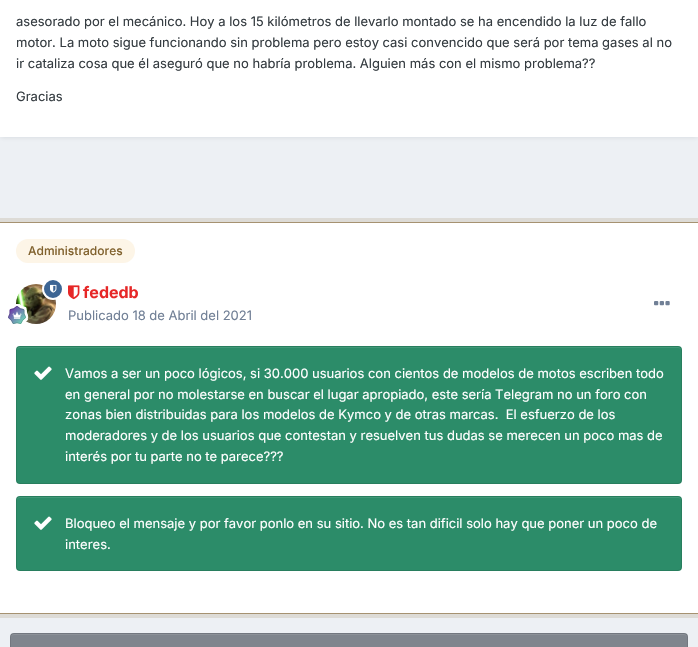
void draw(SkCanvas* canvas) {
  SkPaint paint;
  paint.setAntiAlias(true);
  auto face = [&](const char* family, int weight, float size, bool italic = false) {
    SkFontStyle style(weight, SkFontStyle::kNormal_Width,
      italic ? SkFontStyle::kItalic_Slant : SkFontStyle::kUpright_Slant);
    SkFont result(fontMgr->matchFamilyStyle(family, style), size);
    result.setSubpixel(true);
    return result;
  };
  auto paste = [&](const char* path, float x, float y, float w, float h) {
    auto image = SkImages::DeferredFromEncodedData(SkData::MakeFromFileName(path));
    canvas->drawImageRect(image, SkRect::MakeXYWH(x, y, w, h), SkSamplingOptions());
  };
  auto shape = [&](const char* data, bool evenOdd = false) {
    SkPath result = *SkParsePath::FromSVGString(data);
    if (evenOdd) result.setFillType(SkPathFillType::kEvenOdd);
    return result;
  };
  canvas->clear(0xffedf0f4);
  paint.setColor(0x1a2d3748);
  paint.setMaskFilter(SkMaskFilter::MakeBlur(kNormal_SkBlurStyle, 2));
  canvas->drawRect(SkRect::MakeXYWH(1, -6, 696, 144), paint);
  paint.setMaskFilter(nullptr);
  paint.setColor(0xffffffff);
  canvas->drawRect(SkRect::MakeXYWH(0, 0, 698, 137), paint);
  paint.setStroke(true);
  paint.setStrokeWidth(5);
  paint.setColor(0xffdddbd6);
  canvas->drawRect(SkRect::MakeXYWH(-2.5f, 220.5f, 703, 395), paint);
  paint.setStrokeWidth(1);
  paint.setColor(0xffa69271);
  canvas->drawRect(SkRect::MakeXYWH(-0.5f, 222.5f, 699, 391), paint);
  paint.setStroke(false);
  paint.setColor(0xffffffff);
  canvas->drawRect(SkRect::MakeXYWH(0, 223, 698, 390), paint);
  paint.setColor(0xfffdf5e7);
  canvas->drawRoundRect(SkRect::MakeXYWH(16, 239, 119, 24), 12, 12, paint);
  paste("img/2.png", 16, 284, 40, 40);
  paint.setColor(0xff3d6594);
  canvas->drawCircle(53, 289, 10, paint);
  paint.setStroke(true);
  paint.setStrokeWidth(2);
  paint.setColor(0xffffffff);
  canvas->drawCircle(53, 289, 10, paint);
  paste("img/1.png", 50, 284, 7, 9);
  paste("img/3.png", 8, 304, 20, 20);
  paste("img/4.png", 68, 285, 12, 15);
  paste("img/5.png", 654, 301, 16, 5);
  paint.setStroke(false);
  paint.setColor(0xff2c8c69);
  canvas->drawRoundRect(SkRect::MakeXYWH(16, 346, 666, 138), 4, 4, paint);
  paint.setColor(0xff419878);
  canvas->drawPath(shape("M20 348H678C680 348 681 349 681 351V350C681 348 680 347 678 347H20C18 347 17 348 17 350V351C17 349 18 348 20 348Z"), paint);
  paint.setStroke(true);
  paint.setStrokeWidth(1);
  paint.setColor(0x1a000000);
  canvas->drawRoundRect(SkRect::MakeXYWH(16.5f, 346.5f, 665, 137), 3.5f, 3.5f, paint);
  paste("img/6.png", 34, 366, 18, 14);
  paint.setStroke(false);
  paint.setColor(0xff2c8c69);
  canvas->drawRoundRect(SkRect::MakeXYWH(16, 496, 666, 75), 4, 4, paint);
  paint.setColor(0xff419878);
  canvas->drawPath(shape("M20 498H678C680 498 681 499 681 501V500C681 498 680 497 678 497H20C18 497 17 498 17 500V501C17 499 18 498 20 498Z"), paint);
  paint.setStroke(true);
  paint.setColor(0x1a000000);
  canvas->drawRoundRect(SkRect::MakeXYWH(16.5f, 496.5f, 665, 74), 3.5f, 3.5f, paint);
  paste("img/6.png", 34, 516, 18, 14);
  paint.setStroke(false);
  paint.setColor(0xff7f858d);
  canvas->drawRoundRect(SkRect::MakeXYWH(10, 633, 678, 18), 4, 4, paint);
  paint.setColor(0xff8c9198);
  canvas->drawPath(shape("M14 635H684C686 635 687 636 687 638V637C687 635 686 634 684 634H14C12 634 11 635 11 637V638C11 636 12 635 14 635Z"), paint);
  paint.setStroke(true);
  paint.setColor(0x1a000000);
  canvas->drawRoundRect(SkRect::MakeXYWH(10.5f, 633.5f, 677, 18), 3.5f, 3.5f, paint);
  auto f0 = face("Inter", 400, 13);
  paint.setStroke(false);
  paint.setColor(0xff353c41);
  {
    const struct { const char* s; float x, y; } items[] = {
      {"asesorado por el mecánico. Hoy a los 15 kilómetros de llevarlo montado se ha encendido la luz de fallo", 16, 26},
      {"motor. La moto sigue funcionando sin problema pero estoy casi convencido que será por tema gases al no", 16, 47},
      {"ir cataliza cosa que él aseguró que no habría problema. Alguien más con el mismo problema?\077", 16, 68},
      {"Gracias", 16, 101},
    };
    for (auto [s, x, y] : items) {
      canvas->drawString(s, x, y, f0, paint);
    }
  }
  auto f1 = face("Inter", 500, 12);
  paint.setColor(0xff81622e);
  canvas->drawString("Administradores", 28, 255, f1, paint);
  auto f2 = face("Inter", 700, 16);
  paint.setColor(0xffe62727);
  canvas->drawString("fededb", 83, 298, f2, paint);
  paint.setColor(0xff718096);
  canvas->drawString("Publicado 18 de Abril del 2021", 68, 320, f0, paint);
  paint.setColor(0xffffffff);
  {
    const struct { const char* s; float x, y; } items[] = {
      {"Vamos a ser un poco lógicos, si 30.000 usuarios con cientos de modelos de motos escriben todo", 65, 378},
      {"en general por no molestarse en buscar el lugar apropiado, este sería Telegram no un foro con", 65, 399},
      {"zonas bien distribuidas para los modelos de Kymco y de otras marcas.  El esfuerzo de los", 65, 419},
      {"moderadores y de los usuarios que contestan y resuelven tus dudas se merecen un poco mas de", 65, 440},
      {"interés por tu parte no te parece?\077?", 65, 461},
      {"Bloqueo el mensaje y por favor ponlo en su sitio. No es tan dificil solo hay que poner un poco de", 65, 528},
      {"interes.", 65, 549},
    };
    for (auto [s, x, y] : items) {
      canvas->drawString(s, x, y, f0, paint);
    }
  }
}
